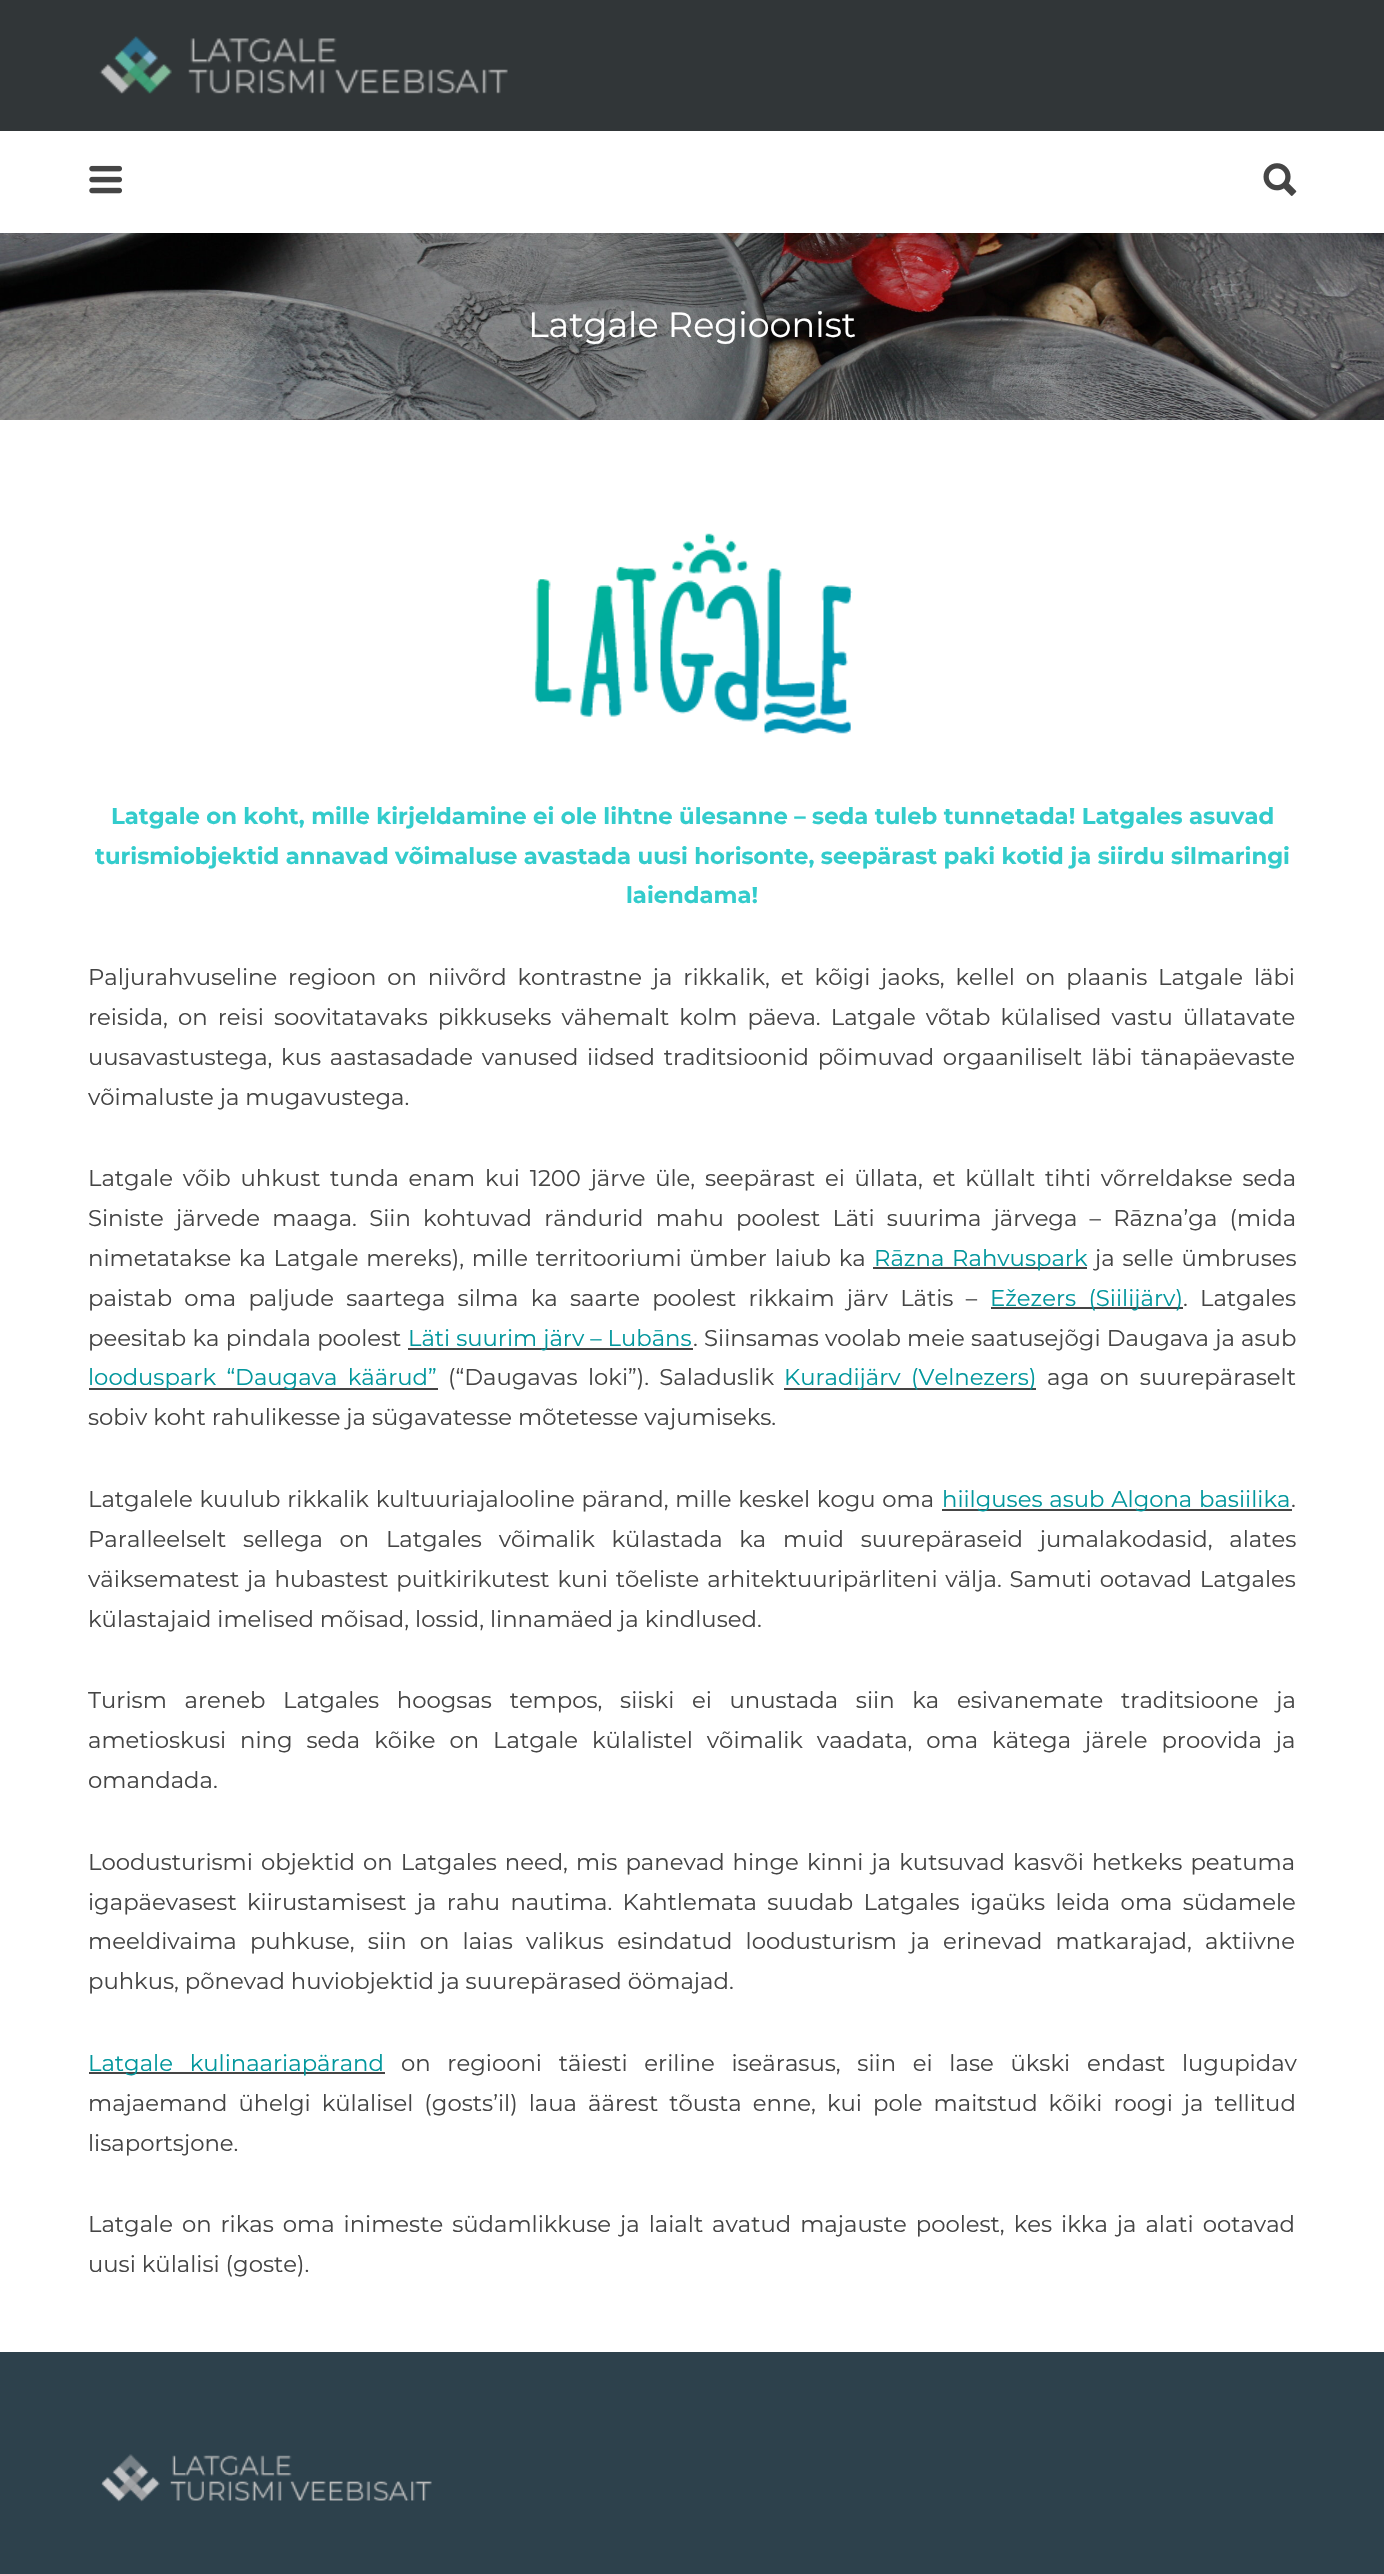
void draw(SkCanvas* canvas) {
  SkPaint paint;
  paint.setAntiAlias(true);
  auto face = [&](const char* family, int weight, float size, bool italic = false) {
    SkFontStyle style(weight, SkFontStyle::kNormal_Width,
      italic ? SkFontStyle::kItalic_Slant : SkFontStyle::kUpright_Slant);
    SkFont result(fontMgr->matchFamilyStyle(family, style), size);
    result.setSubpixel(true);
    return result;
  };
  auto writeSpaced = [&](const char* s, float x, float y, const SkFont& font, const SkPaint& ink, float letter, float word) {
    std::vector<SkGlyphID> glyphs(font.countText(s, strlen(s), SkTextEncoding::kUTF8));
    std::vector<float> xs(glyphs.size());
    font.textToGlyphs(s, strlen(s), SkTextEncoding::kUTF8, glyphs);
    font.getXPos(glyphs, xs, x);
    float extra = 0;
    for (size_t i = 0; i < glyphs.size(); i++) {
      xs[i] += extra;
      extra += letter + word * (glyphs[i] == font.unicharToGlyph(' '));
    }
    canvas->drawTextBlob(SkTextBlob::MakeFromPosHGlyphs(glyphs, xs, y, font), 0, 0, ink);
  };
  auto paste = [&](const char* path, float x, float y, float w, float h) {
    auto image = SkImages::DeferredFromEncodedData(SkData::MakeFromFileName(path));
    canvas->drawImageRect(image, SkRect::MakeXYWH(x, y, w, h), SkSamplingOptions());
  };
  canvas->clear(0xffffffff);
  paint.setColor(0xff313638);
  canvas->drawRect(SkRect::MakeXYWH(0, 0, 1384, 131), paint);
  paste("img/1.png", 99, 36, 409, 58);
  paste("img/2.png", 89, 165, 33, 29);
  paste("img/3.png", 1263, 163, 34, 33);
  paste("img/4.png", 0, 233, 1384, 187);
  paste("img/5.png", 534, 533, 319, 201);
  {
    const struct { float x, y, w, h; SkColor color; } items[] = {
      {873, 1267, 214, 2, 0xff454545},
      {991, 1307, 192, 2, 0xff454545},
      {408, 1348, 285, 2, 0xff454545},
      {89, 1388, 349, 2, 0xff454545},
      {784, 1388, 252, 2, 0xff454545},
      {942, 1509, 350, 2, 0xff454545},
      {89, 2072, 296, 2, 0xff454545},
      {0, 2352, 1384, 222, 0xff2d414c},
    };
    for (auto [x, y, w, h, color] : items) {
      paint.setColor(color);
      canvas->drawRect(SkRect::MakeXYWH(x, y, w, h), paint);
    }
  }
  paste("img/6.png", 101, 2454, 331, 48);
  auto f0 = face("Montserrat", 400, 35);
  paint.setColor(0xffffffff);
  canvas->drawString("Latgale Regioonist", 528, 337, f0, paint);
  auto f1 = face("Montserrat", 700, 22.75f);
  paint.setColor(0xff33cccc);
  {
    const struct { const char* s; float x, y; } items[] = {
      {"Latgale on koht, mille kirjeldamine ei ole lihtne ülesanne – seda tuleb tunnetada! Latgales asuvad", 111, 824},
      {"turismiobjektid annavad võimaluse avastada uusi horisonte, seepärast paki kotid ja siirdu silmaringi", 95, 864},
      {"laiendama!", 626, 903},
    };
    for (auto [s, x, y] : items) {
      canvas->drawString(s, x, y, f1, paint);
    }
  }
  auto f2 = face("Montserrat", 400, 22.75f);
  paint.setColor(0xff454545);
  writeSpaced("Paljurahvuseline regioon on niivõrd kontrastne ja rikkalik, et kõigi jaoks, kellel on plaanis Latgale läbi", 88, 985, f2, paint, 0, 4.9f);
  writeSpaced("reisida, on reisi soovitatavaks pikkuseks vähemalt kolm päeva. Latgale võtab külalised vastu üllatavate", 88, 1025, f2, paint, 0, 4.1f);
  writeSpaced("uusavastustega, kus aastasadade vanused iidsed traditsioonid põimuvad orgaaniliselt läbi tänapäevaste", 88, 1065, f2, paint, 0, 2.75f);
  canvas->drawString("võimaluste ja mugavustega.", 88, 1105, f2, paint);
  writeSpaced("Latgale võib uhkust tunda enam kui 1200 järve üle, seepärast ei üllata, et küllalt tihti võrreldakse seda", 88, 1186, f2, paint, 0, 3.75f);
  writeSpaced("Siniste järvede maaga. Siin kohtuvad rändurid mahu poolest Läti suurima järvega – Rāzna’ga (mida", 88, 1226, f2, paint, 0, 6.25f);
  writeSpaced("nimetatakse ka Latgale mereks), mille territooriumi ümber laiub ka", 88, 1266, f2, paint, 0, 1.75f);
  paint.setColor(0xff02979d);
  writeSpaced("Rāzna Rahvuspark", 874, 1266, f2, paint, 0, 1.75f);
  paint.setColor(0xff454545);
  writeSpaced("ja selle ümbruses", 1095, 1266, f2, paint, 0, 2);
  writeSpaced("paistab oma paljude saartega silma ka saarte poolest rikkaim järv Lätis –", 88, 1306, f2, paint, 0, 6.25f);
  paint.setColor(0xff02979d);
  writeSpaced("Ežezers (Siilijärv)", 990, 1306, f2, paint, 0, 6.25f);
  paint.setColor(0xff454545);
  writeSpaced(". Latgales", 1183, 1306, f2, paint, 0, 6.25f);
  writeSpaced("peesitab ka pindala poolest", 88, 1346, f2, paint, 0, 0.25f);
  paint.setColor(0xff02979d);
  canvas->drawString("Läti suurim järv – Lubāns", 408, 1346, f2, paint);
  paint.setColor(0xff454545);
  writeSpaced(". Siinsamas voolab meie saatusejõgi Daugava ja asub", 693, 1346, f2, paint, 0, 0.25f);
  paint.setColor(0xff02979d);
  writeSpaced("looduspark “Daugava käärud”", 88, 1385, f2, paint, 0, 4.4f);
  paint.setColor(0xff454545);
  writeSpaced("(“Daugavas loki”). Saladuslik", 448, 1385, f2, paint, 0, 4.4f);
  paint.setColor(0xff02979d);
  writeSpaced("Kuradijärv (Velnezers)", 784, 1385, f2, paint, 0, 4.4f);
  paint.setColor(0xff454545);
  writeSpaced("aga on suurepäraselt", 1047, 1385, f2, paint, 0, 4.4f);
  canvas->drawString("sobiv koht rahulikesse ja sügavatesse mõtetesse vajumiseks.", 88, 1425, f2, paint);
  writeSpaced("Latgalele kuulub rikkalik kultuuriajalooline pärand, mille keskel kogu oma", 88, 1507, f2, paint, 0, 0.75f);
  paint.setColor(0xff02979d);
  writeSpaced("hiilguses asub Algona basiilika", 942, 1507, f2, paint, 0, 0.75f);
  paint.setColor(0xff454545);
  canvas->drawString(".", 1291, 1507, f2, paint);
  writeSpaced("Paralleelselt sellega on Latgales võimalik külastada ka muid suurepäraseid jumalakodasid, alates", 88, 1547, f2, paint, 0, 10.75f);
  writeSpaced("väiksematest ja hubastest puitkirikutest kuni tõeliste arhitektuuripärliteni välja. Samuti ootavad Latgales", 88, 1587, f2, paint, 0, 1.9f);
  canvas->drawString("külastajaid imelised mõisad, lossid, linnamäed ja kindlused.", 88, 1627, f2, paint);
  writeSpaced("Turism areneb Latgales hoogsas tempos, siiski ei unustada siin ka esivanemate traditsioone ja", 88, 1708, f2, paint, 0, 11.75f);
  writeSpaced("ametioskusi ning seda kõike on Latgale külalistel võimalik vaadata, oma kätega järele proovida ja", 88, 1748, f2, paint, 0, 8);
  canvas->drawString("omandada.", 88, 1788, f2, paint);
  writeSpaced("Loodusturismi objektid on Latgales need, mis panevad hinge kinni ja kutsuvad kasvõi hetkeks peatuma", 88, 1870, f2, paint, 0, 2.1f);
  writeSpaced("igapäevasest kiirustamisest ja rahu nautima. Kahtlemata suudab Latgales igaüks leida oma südamele", 88, 1910, f2, paint, 0, 4.4f);
  writeSpaced("meeldivaima puhkuse, siin on laias valikus esindatud loodusturism ja erinevad matkarajad, aktiivne", 88, 1949, f2, paint, 0, 7.25f);
  canvas->drawString("puhkus, põnevad huviobjektid ja suurepärased öömajad.", 88, 1989, f2, paint);
  paint.setColor(0xff02979d);
  writeSpaced("Latgale kulinaariapärand", 88, 2071, f2, paint, 0, 10.75f);
  paint.setColor(0xff454545);
  writeSpaced("on regiooni täiesti eriline iseärasus, siin ei lase ükski endast lugupidav", 401, 2071, f2, paint, 0, 10.75f);
  writeSpaced("majaemand ühelgi külalisel (gosts’il) laua äärest tõusta enne, kui pole maitstud kõiki roogi ja tellitud", 88, 2111, f2, paint, 0, 5.1f);
  canvas->drawString("lisaportsjone.", 88, 2151, f2, paint);
  writeSpaced("Latgale on rikas oma inimeste südamlikkuse ja laialt avatud majauste poolest, kes ikka ja alati ootavad", 88, 2232, f2, paint, 0, 3);
  canvas->drawString("uusi külalisi (goste).", 88, 2272, f2, paint);
}
